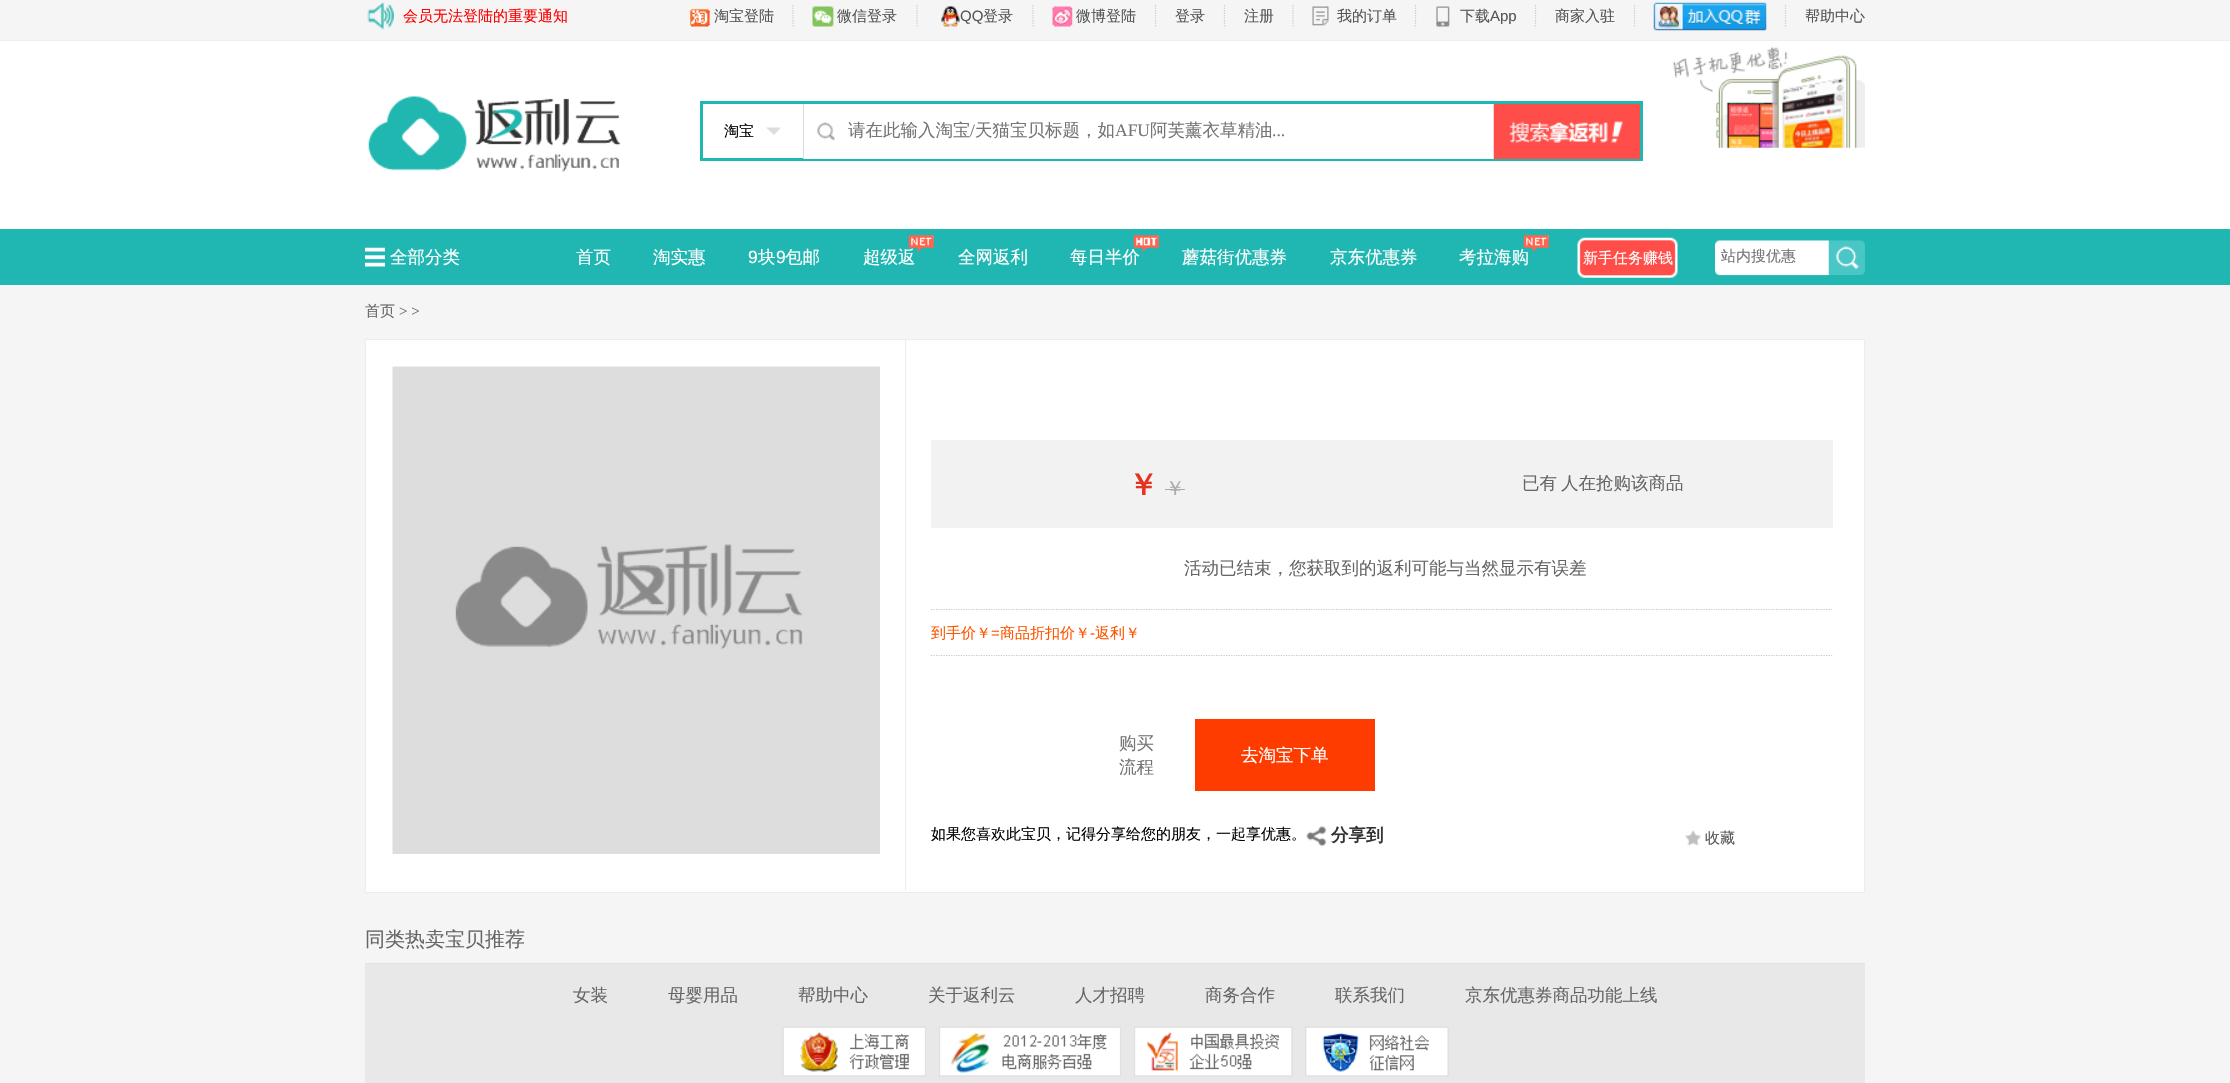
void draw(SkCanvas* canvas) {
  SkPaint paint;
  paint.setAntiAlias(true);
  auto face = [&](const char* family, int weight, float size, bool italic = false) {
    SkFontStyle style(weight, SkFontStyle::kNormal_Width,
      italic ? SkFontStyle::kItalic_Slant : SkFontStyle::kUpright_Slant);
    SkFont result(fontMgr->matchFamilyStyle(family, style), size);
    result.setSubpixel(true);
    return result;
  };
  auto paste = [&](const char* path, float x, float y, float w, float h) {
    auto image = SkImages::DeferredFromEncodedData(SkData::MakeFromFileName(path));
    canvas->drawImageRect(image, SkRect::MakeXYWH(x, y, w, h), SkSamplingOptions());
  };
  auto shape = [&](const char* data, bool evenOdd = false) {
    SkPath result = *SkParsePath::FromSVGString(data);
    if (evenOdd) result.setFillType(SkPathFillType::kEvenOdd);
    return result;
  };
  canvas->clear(0xfff5f5f5);
  paint.setColor(0xffeeeeee);
  canvas->drawRect(SkRect::MakeXYWH(0, 40, 2230, 1), paint);
  paste("img/1.png", 367, 2, 27, 28);
  paste("img/2.png", 690, 8, 20, 19);
  paint.setStroke(true);
  paint.setStrokeWidth(1.2f);
  paint.setColor(0xffcccccc);
  paint.setPathEffect(SkDashPathEffect::Make({{1.25f, 1.25f}}, 0));
  canvas->drawPath(shape("M793 5V27.5"), paint);
  paint.setPathEffect(nullptr);
  paste("img/3.png", 812, 6, 22, 21);
  paint.setPathEffect(SkDashPathEffect::Make({{1.25f, 1.25f}}, 0));
  canvas->drawPath(shape("M917 5V27.5"), paint);
  paint.setPathEffect(nullptr);
  paste("img/4.png", 941, 6, 19, 21);
  paint.setPathEffect(SkDashPathEffect::Make({{1.25f, 1.25f}}, 0));
  canvas->drawPath(shape("M1033 5V27.5"), paint);
  paint.setPathEffect(nullptr);
  paste("img/5.png", 1052, 6, 21, 21);
  paint.setPathEffect(SkDashPathEffect::Make({{1.25f, 1.25f}}, 0));
  canvas->drawPath(shape("M1155.5 5V27.5"), paint);
  paint.setPathEffect(nullptr);
  paint.setPathEffect(SkDashPathEffect::Make({{1.25f, 1.25f}}, 0));
  canvas->drawPath(shape("M1224.5 5V27.5"), paint);
  paint.setPathEffect(nullptr);
  paint.setPathEffect(SkDashPathEffect::Make({{1.25f, 1.25f}}, 0));
  canvas->drawPath(shape("M1293 5V27.5"), paint);
  paint.setPathEffect(nullptr);
  paste("img/6.png", 1312, 6, 17, 20);
  paint.setPathEffect(SkDashPathEffect::Make({{1.25f, 1.25f}}, 0));
  canvas->drawPath(shape("M1415.5 5V27.5"), paint);
  paint.setPathEffect(nullptr);
  paste("img/7.png", 1436, 6, 14, 21);
  paint.setPathEffect(SkDashPathEffect::Make({{1.25f, 1.25f}}, 0));
  canvas->drawPath(shape("M1535.5 5V27.5"), paint);
  paint.setPathEffect(nullptr);
  paint.setPathEffect(SkDashPathEffect::Make({{1.25f, 1.25f}}, 0));
  canvas->drawPath(shape("M1634.5 5V27.5"), paint);
  paint.setPathEffect(nullptr);
  paste("img/8.png", 1653, 2, 114, 29);
  paint.setPathEffect(SkDashPathEffect::Make({{1.25f, 1.25f}}, 0));
  canvas->drawPath(shape("M1785.5 5V27.5"), paint);
  paint.setPathEffect(nullptr);
  paint.setStroke(false);
  paint.setColor(0xffffffff);
  canvas->drawRect(SkRect::MakeXYWH(0, 41, 2230, 188), paint);
  paste("img/9.png", 368, 96, 253, 76);
  paint.setStroke(true);
  paint.setStrokeWidth(3);
  paint.setColor(0xff20b6b1);
  canvas->drawRect(SkRect::MakeXYWH(701.5f, 102.5f, 940, 57), paint);
  paint.setStroke(false);
  paint.setColor(0xffdddddd);
  canvas->drawRect(SkRect::MakeXYWH(803, 104, 1, 55), paint);
  canvas->drawPath(shape("M766 127.5H781L774 135Z"), paint);
  paint.setColor(0xffffffff);
  canvas->drawRect(SkRect::MakeXYWH(804, 158, 690, 1), paint);
  paste("img/10.png", 817, 122, 18, 19);
  paint.setColor(0xffff4e49);
  canvas->drawRect(SkRect::MakeXYWH(1623, 104, 17, 55), paint);
  paste("img/11.png", 1493, 104, 130, 55);
  paste("img/12.png", 1672, 46, 193, 102);
  paint.setColor(0xff20b6b1);
  canvas->drawRect(SkRect::MakeXYWH(0, 229, 2230, 56), paint);
  paste("img/13.png", 365, 247, 20, 20);
  paste("img/17.png", 1577, 237, 101, 41);
  paste("img/18.png", 1715, 240, 150, 36);
  paint.setColor(0xffffffff);
  canvas->drawRect(SkRect::MakeXYWH(1715, 244, 2, 26), paint);
  canvas->drawRect(SkRect::MakeXYWH(365.5f, 339.5f, 1499, 553), paint);
  paint.setStroke(true);
  paint.setStrokeWidth(1);
  paint.setColor(0xffededed);
  canvas->drawRect(SkRect::MakeXYWH(365.5f, 339.5f, 1499, 553), paint);
  paint.setStroke(false);
  canvas->drawRect(SkRect::MakeXYWH(905, 340, 1, 551), paint);
  paste("img/19.png", 392, 366, 488, 488);
  paint.setColor(0xfff2f2f2);
  canvas->drawRect(SkRect::MakeXYWH(931, 440, 902, 88), paint);
  paint.setColor(0xffacacac);
  canvas->drawRect(SkRect::MakeXYWH(1165, 489, 20, 1), paint);
  paint.setStroke(true);
  paint.setStrokeWidth(1.2f);
  paint.setColor(0xffc9c9c9);
  paint.setPathEffect(SkDashPathEffect::Make({{1.25f, 1.25f}}, 0));
  canvas->drawPath(shape("M931 609.5H1832.5"), paint);
  paint.setPathEffect(nullptr);
  paint.setPathEffect(SkDashPathEffect::Make({{1.25f, 1.25f}}, 0));
  canvas->drawPath(shape("M931 655.5H1832.5"), paint);
  paint.setPathEffect(nullptr);
  paint.setStroke(false);
  paint.setColor(0xffff3c00);
  canvas->drawRect(SkRect::MakeXYWH(1195, 719, 180, 72), paint);
  paste("img/20.png", 1306, 826, 21, 21);
  paste("img/21.png", 1685, 830, 16, 16);
  paint.setColor(0xffe8e8e8);
  canvas->drawRect(SkRect::MakeXYWH(365, 964, 1500, 119), paint);
  paint.setColor(0xffe2e2e2);
  canvas->drawRect(SkRect::MakeXYWH(365, 963, 1500, 1), paint);
  paste("img/22.png", 782, 1026, 144, 51);
  paste("img/23.png", 939, 1026, 182, 51);
  paste("img/24.png", 1134, 1026, 159, 51);
  paste("img/25.png", 1305, 1026, 144, 51);
  auto f0 = face("WenQuanYi Zen Hei", 500, 15);
  paint.setColor(0xffff0000);
  canvas->drawString("会员无法登陆的重要通知", 403, 21, f0, paint);
  paint.setColor(0xff555555);
  canvas->drawString("淘宝登陆", 714, 21, f0, paint);
  canvas->drawString("微信登录", 837, 21, f0, paint);
  auto f1 = face("Liberation Sans", 400, 15);
  canvas->drawString("QQ", 960, 21, f1, paint);
  {
    const struct { const char* s; float x, y; } items[] = {
      {"登录", 983, 21},
      {"微博登陆", 1076, 21},
      {"登录", 1175, 21},
      {"注册", 1244, 21},
      {"我的订单", 1337, 21},
      {"下载", 1460, 21},
    };
    for (auto [s, x, y] : items) {
      canvas->drawString(s, x, y, f0, paint);
    }
  }
  canvas->drawString("App", 1490, 21, f1, paint);
  canvas->drawString("商家入驻", 1555, 21, f0, paint);
  canvas->drawString("帮助中心", 1805, 21, f0, paint);
  paint.setColor(0xff000000);
  canvas->drawString("淘宝", 724, 136, f0, paint);
  auto f2 = face("WenQuanYi Zen Hei", 500, 17.5f);
  paint.setColor(0xff757575);
  canvas->drawString("请在此输入淘宝", 848, 136, f2, paint);
  auto f3 = face("Liberation Serif", 400, 17.5f);
  canvas->drawString("/", 970, 136, f3, paint);
  canvas->drawString("天猫宝贝标题，如", 975, 136, f2, paint);
  canvas->drawString("AFU", 1115, 136, f3, paint);
  canvas->drawString("阿芙薰衣草精油", 1150, 136, f2, paint);
  canvas->drawString("...", 1272, 136, f3, paint);
  paint.setColor(0xffffffff);
  {
    const struct { const char* s; float x, y; } items[] = {
      {"全部分类", 390, 263},
      {"首页", 576, 263},
      {"淘实惠", 653, 263},
    };
    for (auto [s, x, y] : items) {
      canvas->drawString(s, x, y, f2, paint);
    }
  }
  auto f4 = face("Liberation Sans", 400, 17.5f);
  canvas->drawString("9", 748, 263, f4, paint);
  canvas->drawString("块", 758, 263, f2, paint);
  canvas->drawString("9", 776, 263, f4, paint);
  canvas->drawString("包邮", 785, 263, f2, paint);
  canvas->drawString("超级返", 863, 263, f2, paint);
  paste("img/14.png", 908, 235, 26, 17);
  canvas->drawString("全网返利", 958, 263, f2, paint);
  canvas->drawString("每日半价", 1070, 263, f2, paint);
  paste("img/15.png", 1133, 235, 26, 17);
  {
    const struct { const char* s; float x, y; } items[] = {
      {"蘑菇街优惠券", 1182, 263},
      {"京东优惠券", 1330, 263},
      {"考拉海购", 1459, 263},
    };
    for (auto [s, x, y] : items) {
      canvas->drawString(s, x, y, f2, paint);
    }
  }
  paste("img/16.png", 1523, 235, 26, 17);
  canvas->drawString("新手任务赚钱", 1583, 263, f0, paint);
  paint.setColor(0xff757575);
  canvas->drawString("站内搜优惠", 1721, 261, f0, paint);
  paint.setColor(0xff666666);
  canvas->drawString("首页", 365, 316, f0, paint);
  auto f5 = face("Liberation Serif", 400, 15);
  canvas->drawString("> >", 399, 316, f5, paint);
  auto f6 = face("WenQuanYi Zen Hei", 700, 30);
  paint.setColor(0xffe73121);
  canvas->drawString("￥", 1128, 495, f6, paint);
  auto f7 = face("WenQuanYi Zen Hei", 500, 20);
  paint.setColor(0xffacacac);
  canvas->drawString("￥", 1165, 495, f7, paint);
  paint.setColor(0xff666666);
  {
    const struct { const char* s; float x, y; } items[] = {
      {"已有", 1522, 489},
      {"人在抢购该商品", 1561, 489},
      {"活动已结束，您获取到的返利可能与当然显示有误差", 1184, 574},
    };
    for (auto [s, x, y] : items) {
      canvas->drawString(s, x, y, f2, paint);
    }
  }
  paint.setColor(0xffff5500);
  canvas->drawString("到手价￥", 931, 638, f0, paint);
  canvas->drawString("=", 991, 638, f1, paint);
  canvas->drawString("商品折扣价￥", 1000, 638, f0, paint);
  canvas->drawString("-", 1090, 638, f1, paint);
  canvas->drawString("返利￥", 1095, 638, f0, paint);
  paint.setColor(0xff757575);
  canvas->drawString("购买", 1119, 749, f2, paint);
  canvas->drawString("流程", 1119, 773, f2, paint);
  paint.setColor(0xffffffff);
  canvas->drawString("去淘宝下单", 1241, 761, f2, paint);
  paint.setColor(0xff000000);
  canvas->drawString("如果您喜欢此宝贝，记得分享给您的朋友，一起享优惠。", 931, 839, f0, paint);
  auto f8 = face("WenQuanYi Zen Hei", 700, 17.5f);
  paint.setColor(0xff333333);
  canvas->drawString("分享到", 1331, 841, f8, paint);
  paint.setColor(0xff555555);
  canvas->drawString("收藏", 1705, 843, f0, paint);
  paint.setColor(0xff666666);
  canvas->drawString("同类热卖宝贝推荐", 365, 946, f7, paint);
  {
    const struct { const char* s; float x, y; } items[] = {
      {"女装", 573, 1001},
      {"母婴用品", 668, 1001},
      {"帮助中心", 798, 1001},
      {"关于返利云", 928, 1001},
      {"人才招聘", 1075, 1001},
      {"商务合作", 1205, 1001},
      {"联系我们", 1335, 1001},
      {"京东优惠券商品功能上线", 1465, 1001},
    };
    for (auto [s, x, y] : items) {
      canvas->drawString(s, x, y, f2, paint);
    }
  }
}
